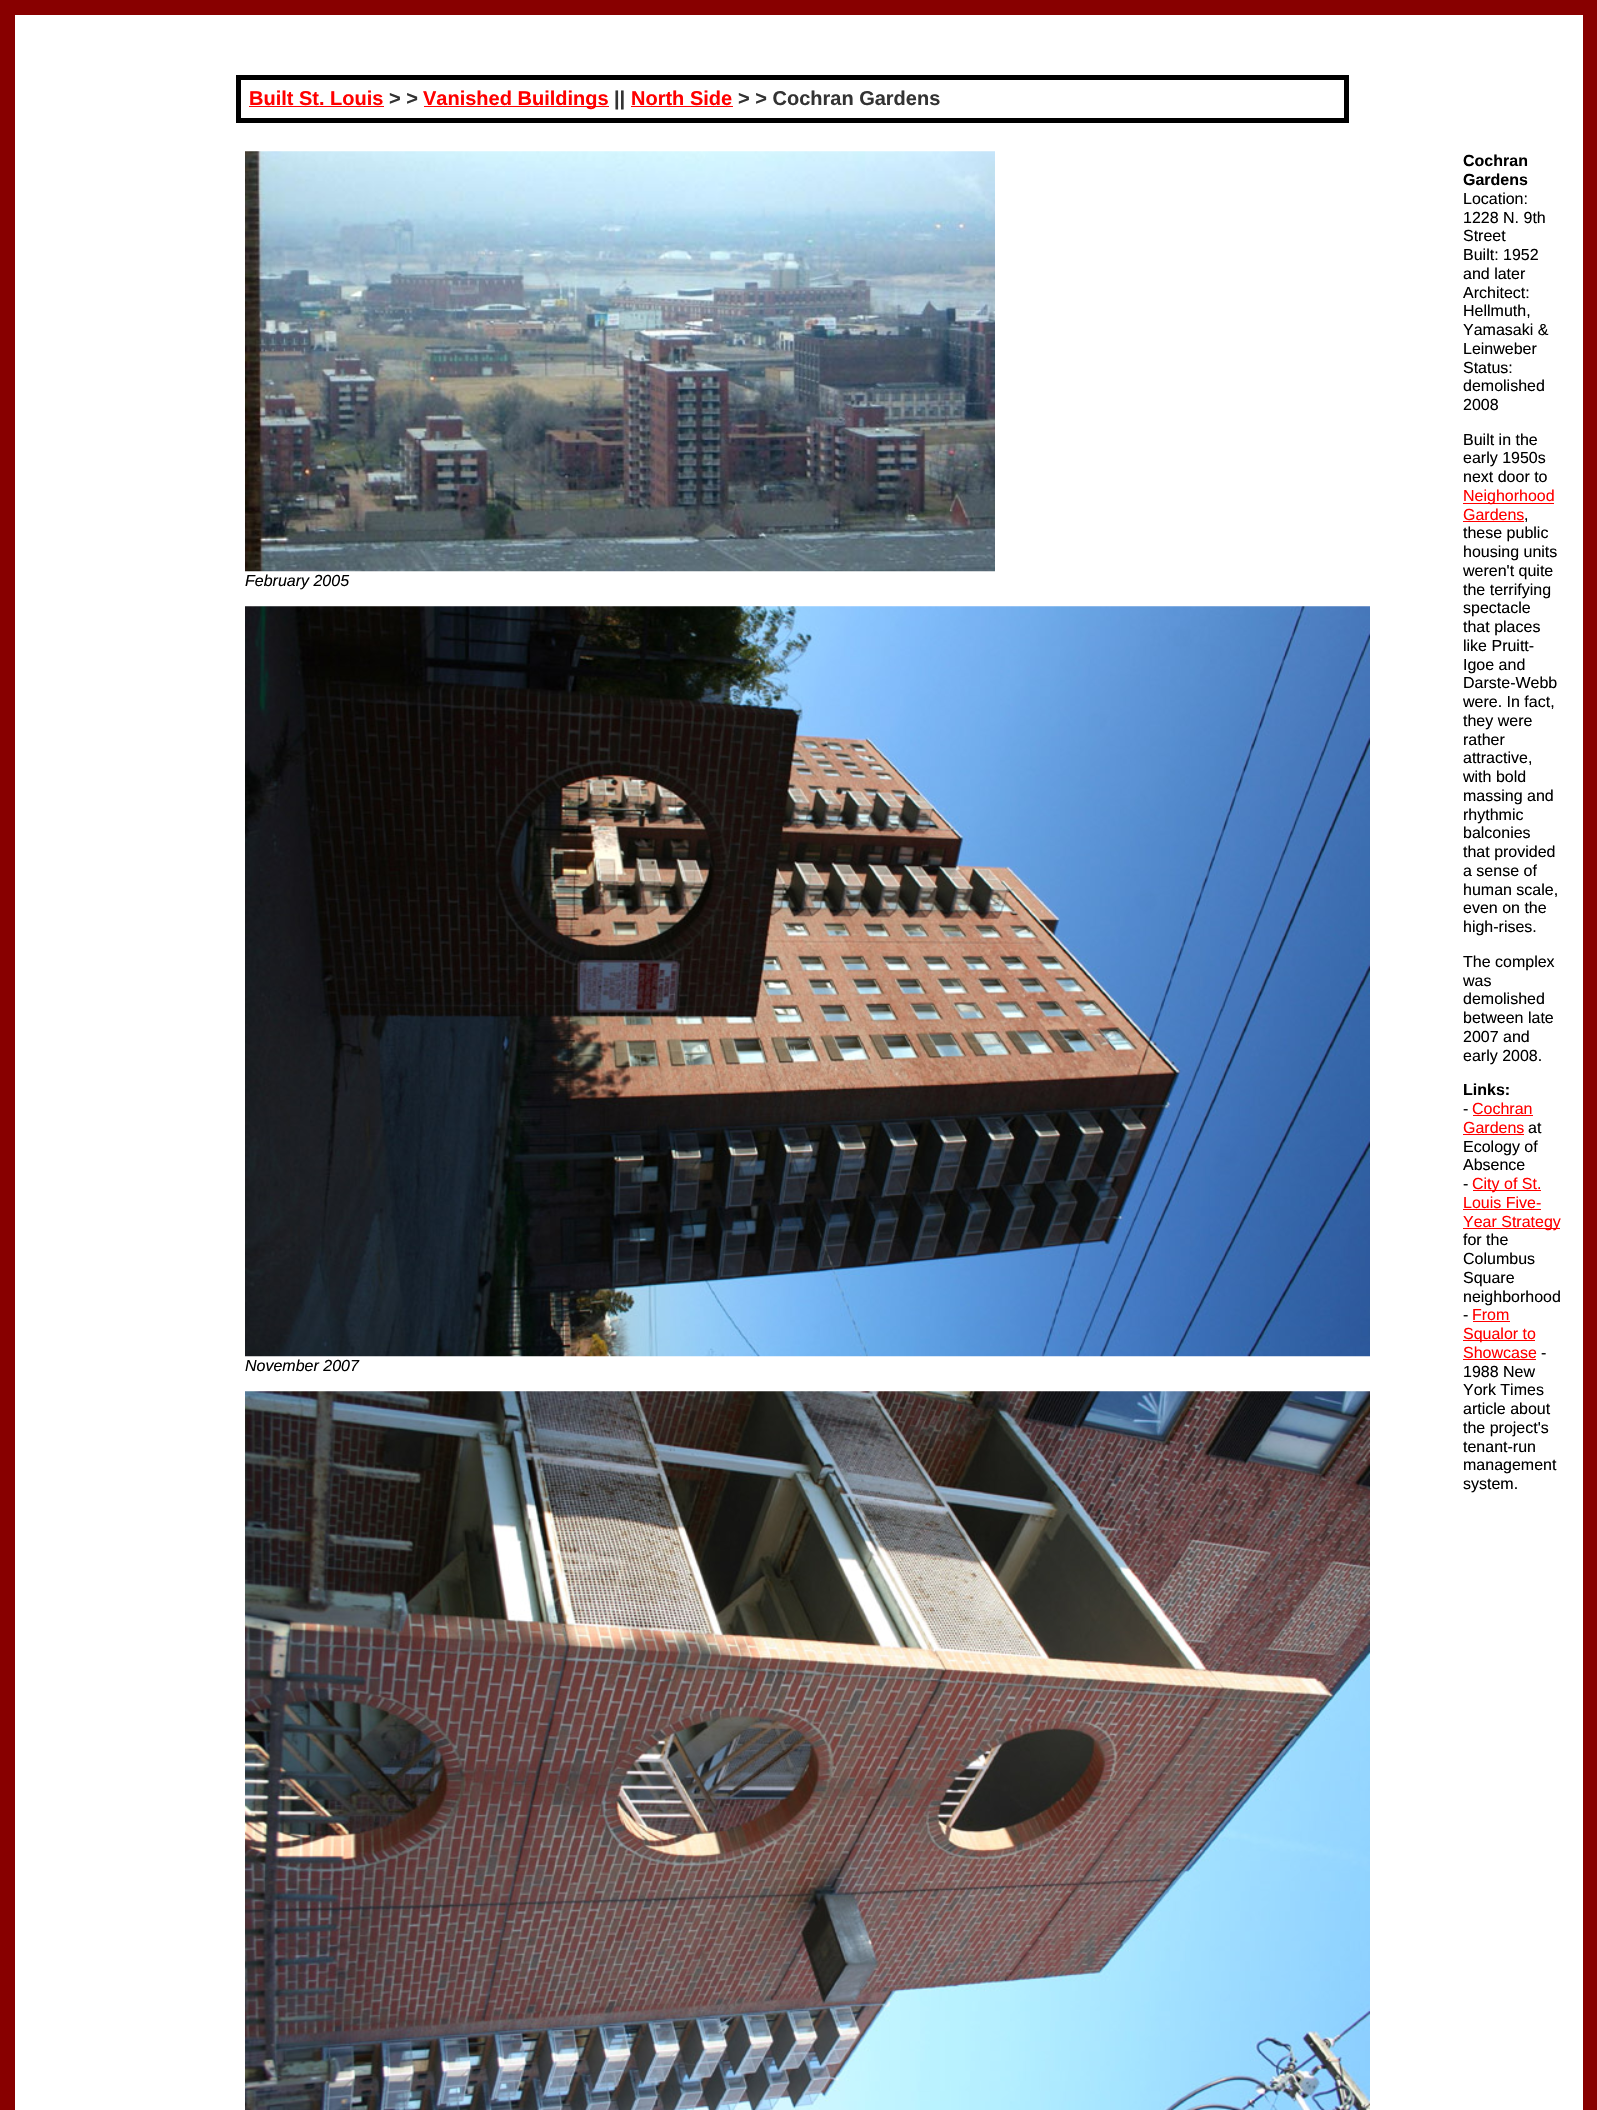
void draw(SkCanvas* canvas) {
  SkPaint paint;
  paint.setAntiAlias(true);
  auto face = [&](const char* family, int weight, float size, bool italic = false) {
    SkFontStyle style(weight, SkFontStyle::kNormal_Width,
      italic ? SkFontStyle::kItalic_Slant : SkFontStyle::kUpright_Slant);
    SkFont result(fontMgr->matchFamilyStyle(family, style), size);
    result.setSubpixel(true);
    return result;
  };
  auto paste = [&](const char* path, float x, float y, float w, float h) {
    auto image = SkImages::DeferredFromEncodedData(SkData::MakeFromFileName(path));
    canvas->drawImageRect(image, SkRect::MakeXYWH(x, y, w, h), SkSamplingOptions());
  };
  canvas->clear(0xff880000);
  paint.setColor(0xffffffff);
  canvas->drawRect(SkRect::MakeXYWH(15, 15, 1568, 2095), paint);
  paint.setStroke(true);
  paint.setStrokeWidth(5);
  paint.setColor(0xff000000);
  canvas->drawRect(SkRect::MakeXYWH(238.5f, 77.5f, 1108, 43), paint);
  paint.setStroke(false);
  {
    const struct { float x, y, w, h; SkColor color; } items[] = {
      {249, 106, 135, 1, 0xffff0000},
      {424, 106, 185, 1, 0xffff0000},
      {631, 106, 102, 1, 0xffff0000},
    };
    for (auto [x, y, w, h, color] : items) {
      paint.setColor(color);
      canvas->drawRect(SkRect::MakeXYWH(x, y, w, h), paint);
    }
  }
  paste("img/1.png", 245, 151, 750, 421);
  paste("img/2.png", 245, 606, 1125, 751);
  paste("img/3.png", 245, 1391, 1125, 719);
  {
    const struct { float x, y, w, h; SkColor color; } items[] = {
      {1463, 503, 91, 1, 0xffff0000},
      {1463, 521, 61, 1, 0xffff0000},
      {1473, 1115, 60, 1, 0xffff0000},
      {1463, 1134, 61, 1, 0xffff0000},
      {1473, 1190, 68, 1, 0xffff0000},
      {1463, 1209, 78, 1, 0xffff0000},
      {1463, 1228, 97, 1, 0xffff0000},
      {1473, 1321, 37, 1, 0xffff0000},
      {1463, 1340, 72, 1, 0xffff0000},
      {1463, 1359, 73, 1, 0xffff0000},
    };
    for (auto [x, y, w, h, color] : items) {
      paint.setColor(color);
      canvas->drawRect(SkRect::MakeXYWH(x, y, w, h), paint);
    }
  }
  auto f0 = face("Liberation Sans", 700, 20);
  canvas->drawString("Built St. Louis", 249, 105, f0, paint);
  paint.setColor(0xff333333);
  canvas->drawString("> >", 389, 105, f0, paint);
  paint.setColor(0xffff0000);
  canvas->drawString("Vanished Buildings", 423, 105, f0, paint);
  paint.setColor(0xff333333);
  canvas->drawString("||", 614, 105, f0, paint);
  paint.setColor(0xffff0000);
  canvas->drawString("North Side", 631, 105, f0, paint);
  paint.setColor(0xff333333);
  canvas->drawString("> > Cochran Gardens", 738, 105, f0, paint);
  auto f1 = face("Liberation Sans", 400, 16, true);
  paint.setColor(0xff000000);
  canvas->drawString("February 2005", 245, 586, f1, paint);
  canvas->drawString("November 2007", 245, 1371, f1, paint);
  auto f2 = face("Liberation Sans", 700, 16);
  canvas->drawString("Cochran", 1463, 166, f2, paint);
  canvas->drawString("Gardens", 1463, 185, f2, paint);
  auto f3 = face("Liberation Sans", 400, 16);
  {
    const struct { const char* s; float x, y; } items[] = {
      {"Location:", 1463, 204},
      {"1228 N. 9th", 1463, 223},
      {"Street", 1463, 241},
      {"Built: 1952", 1463, 260},
      {"and later", 1463, 279},
      {"Architect:", 1463, 298},
      {"Hellmuth,", 1463, 316},
      {"Yamasaki &", 1463, 335},
      {"Leinweber", 1463, 354},
      {"Status:", 1463, 373},
      {"demolished", 1463, 391},
      {"2008", 1463, 410},
      {"Built in the", 1463, 445},
      {"early 1950s", 1463, 463},
      {"next door to", 1463, 482},
    };
    for (auto [s, x, y] : items) {
      canvas->drawString(s, x, y, f3, paint);
    }
  }
  paint.setColor(0xffff0000);
  canvas->drawString("Neighorhood", 1463, 501, f3, paint);
  canvas->drawString("Gardens", 1463, 520, f3, paint);
  paint.setColor(0xff000000);
  {
    const struct { const char* s; float x, y; } items[] = {
      {",", 1524, 520},
      {"these public", 1463, 538},
      {"housing units", 1463, 557},
      {"weren't quite", 1463, 576},
      {"the terrifying", 1463, 595},
      {"spectacle", 1463, 613},
      {"that places", 1463, 632},
      {"like Pruitt-", 1463, 651},
      {"Igoe and", 1463, 670},
      {"Darste-Webb", 1463, 688},
      {"were. In fact,", 1463, 707},
      {"they were", 1463, 726},
      {"rather", 1463, 745},
      {"attractive,", 1463, 763},
      {"with bold", 1463, 782},
      {"massing and", 1463, 801},
      {"rhythmic", 1463, 820},
      {"balconies", 1463, 838},
      {"that provided", 1463, 857},
      {"a sense of", 1463, 876},
      {"human scale,", 1463, 895},
      {"even on the", 1463, 913},
      {"high-rises.", 1463, 932},
      {"The complex", 1463, 967},
      {"was", 1463, 986},
      {"demolished", 1463, 1004},
      {"between late", 1463, 1023},
      {"2007 and", 1463, 1042},
      {"early 2008.", 1463, 1061},
    };
    for (auto [s, x, y] : items) {
      canvas->drawString(s, x, y, f3, paint);
    }
  }
  canvas->drawString("Links:", 1463, 1095, f2, paint);
  canvas->drawString("-", 1463, 1114, f3, paint);
  paint.setColor(0xffff0000);
  canvas->drawString("Cochran", 1472, 1114, f3, paint);
  canvas->drawString("Gardens", 1463, 1133, f3, paint);
  paint.setColor(0xff000000);
  {
    const struct { const char* s; float x, y; } items[] = {
      {"at", 1528, 1133},
      {"Ecology of", 1463, 1152},
      {"Absence", 1463, 1170},
      {"-", 1463, 1189},
    };
    for (auto [s, x, y] : items) {
      canvas->drawString(s, x, y, f3, paint);
    }
  }
  paint.setColor(0xffff0000);
  {
    const struct { const char* s; float x, y; } items[] = {
      {"City of St.", 1472, 1189},
      {"Louis Five-", 1463, 1208},
      {"Year Strategy", 1463, 1227},
    };
    for (auto [s, x, y] : items) {
      canvas->drawString(s, x, y, f3, paint);
    }
  }
  paint.setColor(0xff000000);
  {
    const struct { const char* s; float x, y; } items[] = {
      {"for the", 1463, 1245},
      {"Columbus", 1463, 1264},
      {"Square", 1463, 1283},
      {"neighborhood", 1463, 1302},
      {"-", 1463, 1320},
    };
    for (auto [s, x, y] : items) {
      canvas->drawString(s, x, y, f3, paint);
    }
  }
  paint.setColor(0xffff0000);
  {
    const struct { const char* s; float x, y; } items[] = {
      {"From", 1472, 1320},
      {"Squalor to", 1463, 1339},
      {"Showcase", 1463, 1358},
    };
    for (auto [s, x, y] : items) {
      canvas->drawString(s, x, y, f3, paint);
    }
  }
  paint.setColor(0xff000000);
  {
    const struct { const char* s; float x, y; } items[] = {
      {"-", 1541, 1358},
      {"1988 New", 1463, 1377},
      {"York Times", 1463, 1395},
      {"article about", 1463, 1414},
      {"the project's", 1463, 1433},
      {"tenant-run", 1463, 1452},
      {"management", 1463, 1470},
      {"system.", 1463, 1489},
    };
    for (auto [s, x, y] : items) {
      canvas->drawString(s, x, y, f3, paint);
    }
  }
}
